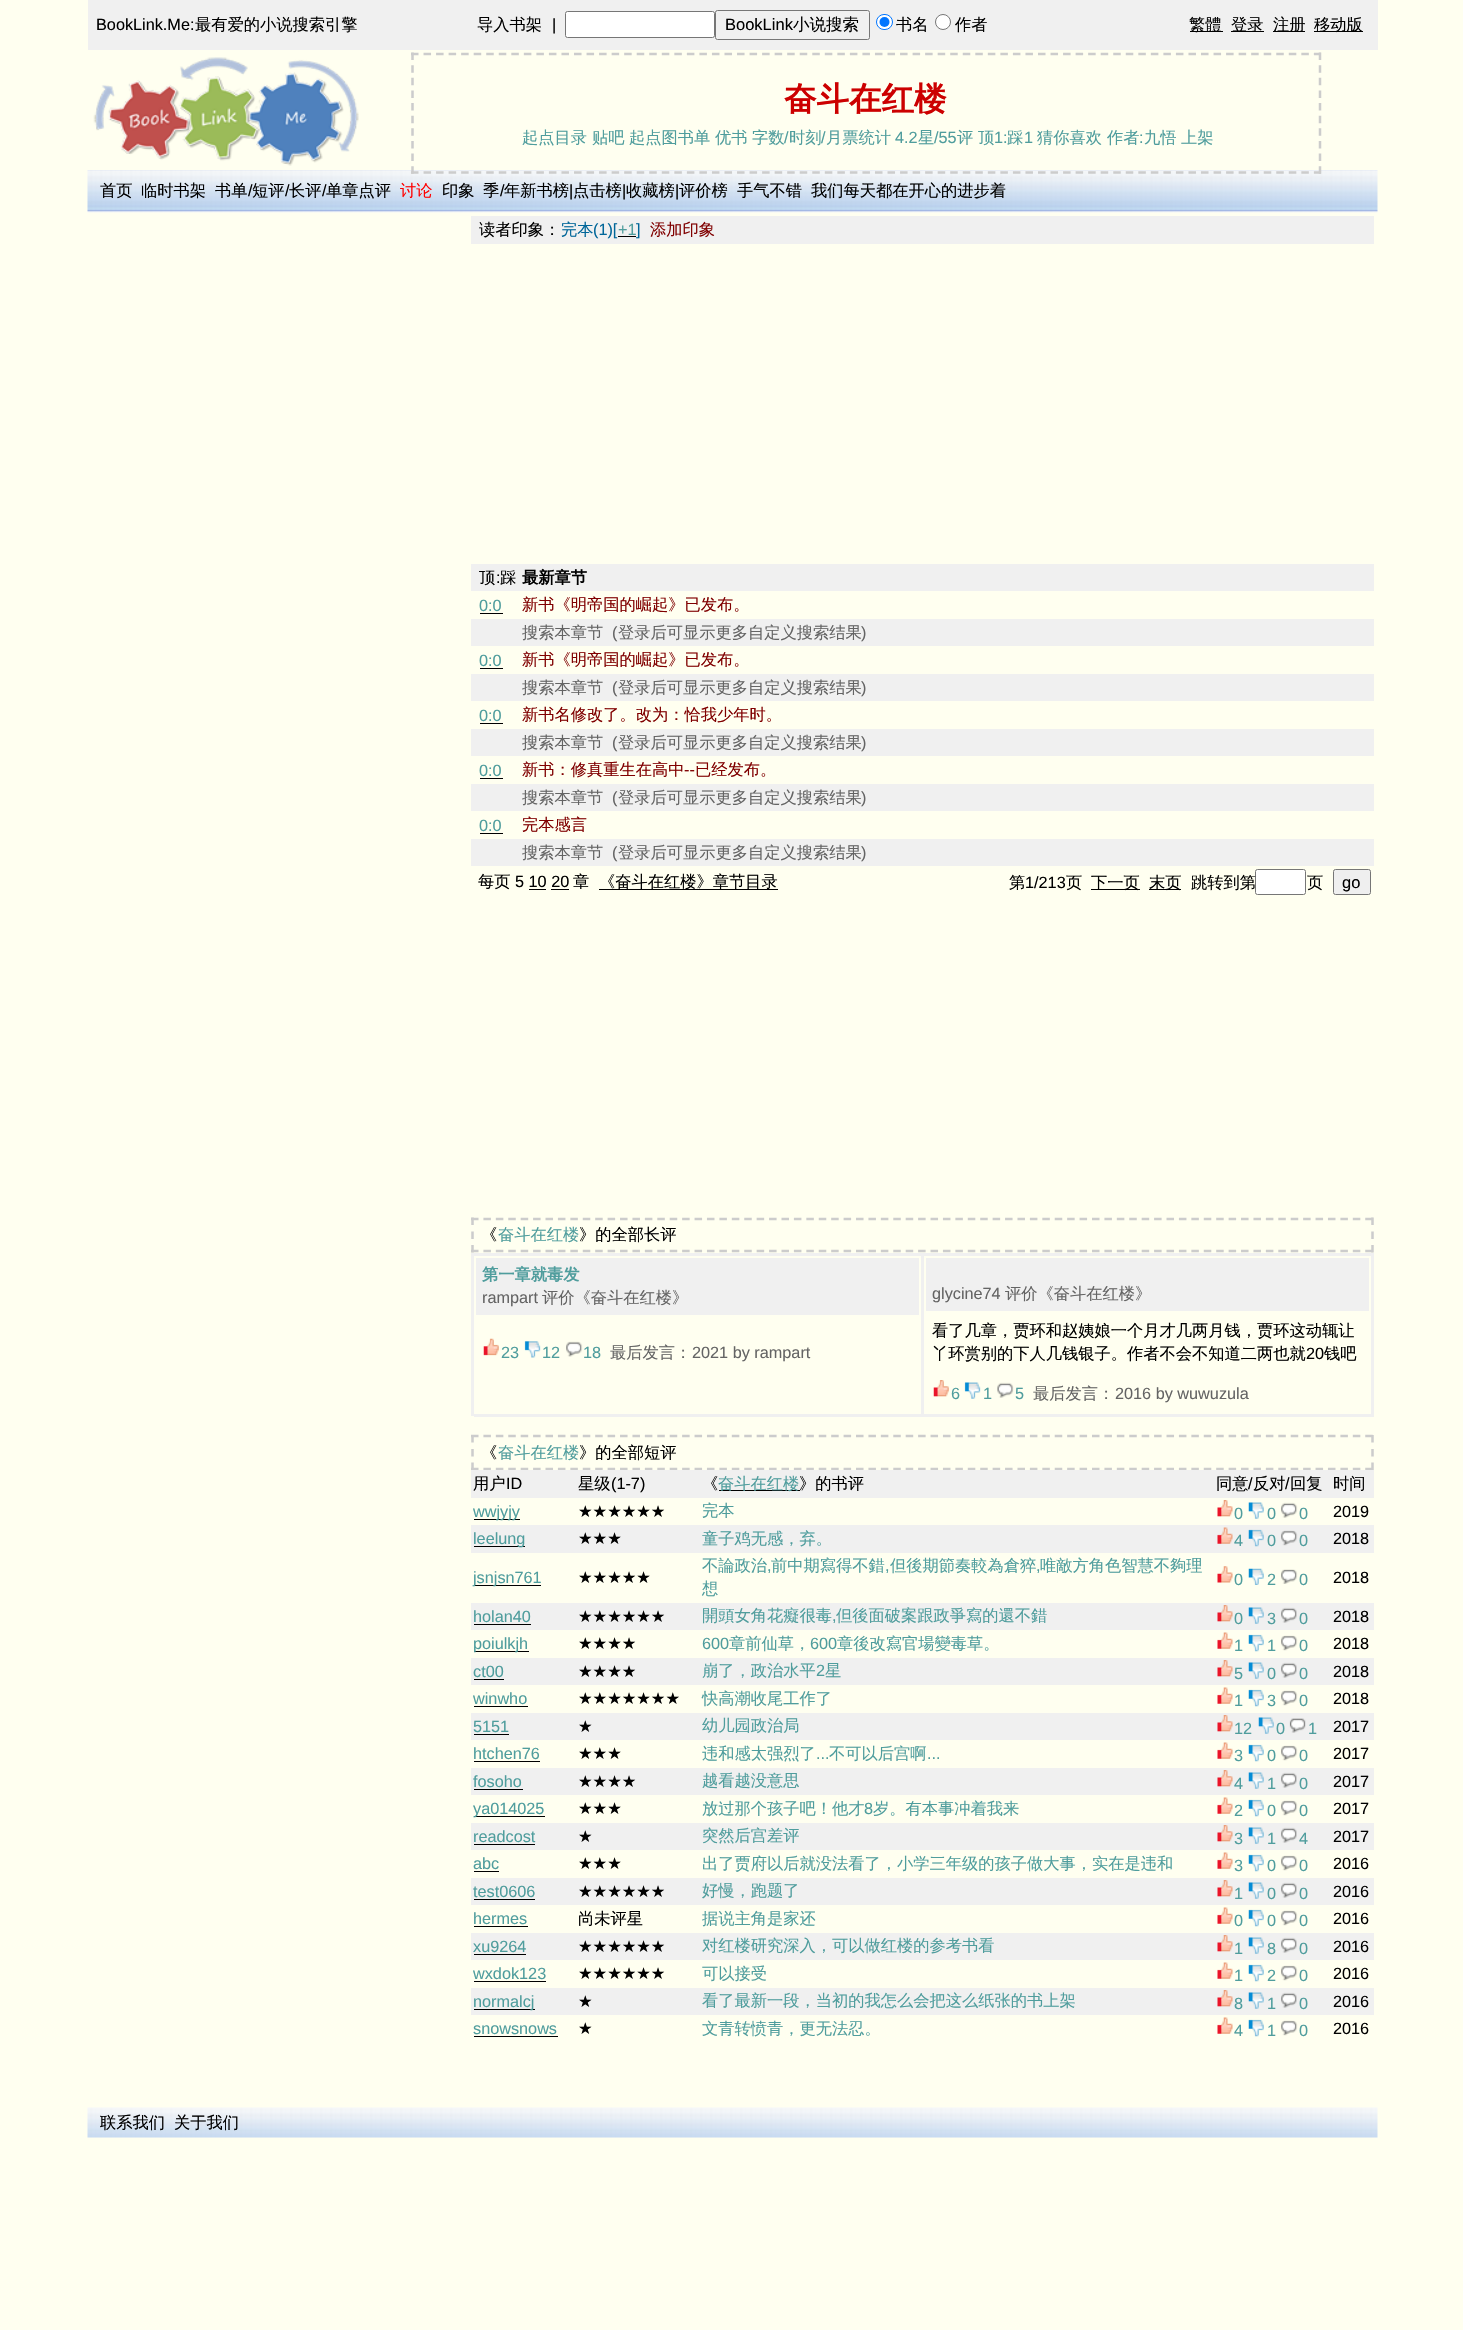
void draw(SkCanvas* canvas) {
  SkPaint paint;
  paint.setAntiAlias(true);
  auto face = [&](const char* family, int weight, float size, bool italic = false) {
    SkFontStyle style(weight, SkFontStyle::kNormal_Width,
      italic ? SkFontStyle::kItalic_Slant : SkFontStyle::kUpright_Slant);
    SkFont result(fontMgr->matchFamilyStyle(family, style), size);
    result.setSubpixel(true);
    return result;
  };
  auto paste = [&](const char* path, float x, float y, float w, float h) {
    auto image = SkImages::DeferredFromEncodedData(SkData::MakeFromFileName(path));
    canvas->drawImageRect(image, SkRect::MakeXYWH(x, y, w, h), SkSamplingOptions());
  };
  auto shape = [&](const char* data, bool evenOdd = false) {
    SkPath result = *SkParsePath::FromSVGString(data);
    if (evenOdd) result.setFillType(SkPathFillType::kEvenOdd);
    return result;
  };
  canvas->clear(0xfffffff0);
  paint.setColor(0xfff0f0f0);
  canvas->drawRect(SkRect::MakeXYWH(88, 0, 1290, 50), paint);
  paint.setColor(0xffffffff);
  canvas->drawRoundRect(SkRect::MakeXYWH(565.5f, 11.5f, 149, 26), 2, 2, paint);
  paint.setStroke(true);
  paint.setStrokeWidth(1);
  paint.setColor(0xff767676);
  canvas->drawRoundRect(SkRect::MakeXYWH(565.5f, 11.5f, 149, 26), 2, 2, paint);
  canvas->drawRoundRect(SkRect::MakeXYWH(715.5f, 10.5f, 154, 29), 2, 2, paint);
  paint.setStroke(false);
  paint.setColor(0xffffffff);
  canvas->drawRoundRect(SkRect::MakeXYWH(876.5f, 14.5f, 16, 15), 7.5f, 7.5f, paint);
  paint.setStroke(true);
  paint.setColor(0xff0075ff);
  canvas->drawRoundRect(SkRect::MakeXYWH(876.5f, 14.5f, 16, 15), 7.5f, 7.5f, paint);
  paint.setStroke(false);
  canvas->drawCircle(884.5f, 22, 5, paint);
  paint.setColor(0xffffffff);
  canvas->drawCircle(943, 22, 7.5f, paint);
  paint.setStroke(true);
  paint.setColor(0xff767676);
  canvas->drawCircle(943, 22, 7.5f, paint);
  paint.setStroke(false);
  {
    const struct { float x, y, w, h; SkColor color; } items[] = {
      {1190, 31, 33, 1, 0xff000000},
      {1231, 31, 33, 1, 0xff000000},
      {1273, 31, 32, 1, 0xff000000},
      {1314, 31, 49, 1, 0xff000000},
    };
    for (auto [x, y, w, h, color] : items) {
      paint.setColor(color);
      canvas->drawRect(SkRect::MakeXYWH(x, y, w, h), paint);
    }
  }
  paste("img/1.png", 93, 57, 266, 109);
  paint.setStroke(true);
  paint.setStrokeWidth(2.5f);
  paint.setColor(0xffcccccc);
  paint.setPathEffect(SkDashPathEffect::Make({{7.5f, 5.04f}}, 0));
  canvas->drawPath(shape("M411 54H1321"), paint);
  paint.setPathEffect(nullptr);
  paste("img/28.png", 87, 170, 1291, 43);
  paint.setPathEffect(SkDashPathEffect::Make({{7.5f, 5.14f}}, 0));
  canvas->drawPath(shape("M1320 52.5V174"), paint);
  paint.setPathEffect(nullptr);
  paint.setPathEffect(SkDashPathEffect::Make({{7.5f, 5.04f}}, 0));
  canvas->drawPath(shape("M411 172.5H1321"), paint);
  paint.setPathEffect(nullptr);
  paint.setPathEffect(SkDashPathEffect::Make({{7.5f, 5.14f}}, 0));
  canvas->drawPath(shape("M412.5 52.5V174"), paint);
  paint.setPathEffect(nullptr);
  paint.setStroke(false);
  {
    const struct { float x, y, w, h; SkColor color; } items[] = {
      {471, 216, 903, 28, 0xfff0f0f0},
      {618, 236, 18, 1, 0xff000000},
      {471, 564, 903, 27, 0xfff0f0f0},
      {480, 613, 23, 1, 0xff000000},
      {471, 619, 903, 27, 0xfff0f0f0},
      {480, 668, 23, 1, 0xff000000},
      {471, 674, 903, 27, 0xfff0f0f0},
      {480, 723, 23, 1, 0xff000000},
      {471, 729, 903, 27, 0xfff0f0f0},
      {480, 778, 23, 1, 0xff000000},
      {471, 784, 903, 27, 0xfff0f0f0},
      {480, 833, 23, 1, 0xff000000},
      {471, 839, 903, 27, 0xfff0f0f0},
      {599, 889, 179, 1, 0xff000000},
      {529, 889, 17, 1, 0xff000000},
      {551, 889, 18, 1, 0xff000000},
      {1091, 889, 49, 1, 0xff000000},
      {1149, 889, 32, 1, 0xff000000},
    };
    for (auto [x, y, w, h, color] : items) {
      paint.setColor(color);
      canvas->drawRect(SkRect::MakeXYWH(x, y, w, h), paint);
    }
  }
  paint.setColor(0xffffffff);
  canvas->drawRoundRect(SkRect::MakeXYWH(1255.5f, 869.5f, 50, 25), 2, 2, paint);
  paint.setStroke(true);
  paint.setStrokeWidth(1);
  paint.setColor(0xff767676);
  canvas->drawRoundRect(SkRect::MakeXYWH(1255.5f, 869.5f, 50, 25), 2, 2, paint);
  paint.setStroke(false);
  paint.setColor(0xffefefef);
  canvas->drawRoundRect(SkRect::MakeXYWH(1333.5f, 869.5f, 37, 25), 2, 2, paint);
  paint.setStroke(true);
  paint.setColor(0xff767676);
  canvas->drawRoundRect(SkRect::MakeXYWH(1333.5f, 869.5f, 37, 25), 2, 2, paint);
  paint.setStrokeWidth(2.5f);
  paint.setColor(0xffcccccc);
  paint.setPathEffect(SkDashPathEffect::Make({{7.5f, 4.92f}}, 0));
  canvas->drawPath(shape("M471 1219H1374"), paint);
  paint.setPathEffect(nullptr);
  canvas->drawPath(shape("M1372.5 1217.5V1225M1372.5 1231.5V1239M1372.5 1245V1252.5"), paint);
  paint.setPathEffect(SkDashPathEffect::Make({{7.5f, 4.92f}}, 0));
  canvas->drawPath(shape("M471 1251H1374"), paint);
  paint.setPathEffect(nullptr);
  canvas->drawPath(shape("M472.5 1217.5V1225M472.5 1231.5V1239M472.5 1245V1252.5"), paint);
  paint.setStroke(false);
  {
    const struct { float x, y, w, h; SkColor color; } items[] = {
      {471, 1253, 903, 3, 0xfff0f0f0},
      {471, 1253, 3, 163, 0xfff0f0f0},
      {921, 1255, 3, 161, 0xfff0f0f0},
      {474, 1414, 450, 3, 0xfff0f0f0},
      {476, 1258, 443, 57, 0xfff0f0f0},
    };
    for (auto [x, y, w, h, color] : items) {
      paint.setColor(color);
      canvas->drawRect(SkRect::MakeXYWH(x, y, w, h), paint);
    }
  }
  paste("img/2.png", 483, 1338, 16, 18);
  paste("img/3.png", 524, 1341, 17, 17);
  paste("img/4.png", 566, 1341, 17, 16);
  {
    const struct { float x, y, w, h; SkColor color; } items[] = {
      {1371, 1255, 3, 161, 0xfff0f0f0},
      {924, 1414, 450, 3, 0xfff0f0f0},
      {926, 1258, 443, 53, 0xfff0f0f0},
    };
    for (auto [x, y, w, h, color] : items) {
      paint.setColor(color);
      canvas->drawRect(SkRect::MakeXYWH(x, y, w, h), paint);
    }
  }
  paste("img/5.png", 933, 1380, 16, 17);
  paste("img/6.png", 964, 1382, 17, 17);
  paste("img/7.png", 997, 1382, 17, 16);
  paint.setStroke(true);
  paint.setColor(0xffcccccc);
  paint.setPathEffect(SkDashPathEffect::Make({{7.5f, 4.92f}}, 0));
  canvas->drawPath(shape("M471 1436H1374"), paint);
  paint.setPathEffect(nullptr);
  canvas->drawPath(shape("M1372.5 1435V1442.5M1372.5 1449V1456.5M1372.5 1462.5V1470"), paint);
  paint.setPathEffect(SkDashPathEffect::Make({{7.5f, 4.92f}}, 0));
  canvas->drawPath(shape("M471 1469H1374"), paint);
  paint.setPathEffect(nullptr);
  canvas->drawPath(shape("M472.5 1435V1442.5M472.5 1449V1456.5M472.5 1462.5V1470"), paint);
  paint.setStroke(false);
  {
    const struct { float x, y, w, h; SkColor color; } items[] = {
      {471, 1470, 903, 28, 0xfff0f0f0},
      {719, 1490, 81, 1, 0xff000000},
      {474, 1519, 46, 1, 0xff000000},
    };
    for (auto [x, y, w, h, color] : items) {
      paint.setColor(color);
      canvas->drawRect(SkRect::MakeXYWH(x, y, w, h), paint);
    }
  }
  paste("img/8.png", 1217, 1500, 16, 17);
  paste("img/9.png", 1248, 1502, 16, 17);
  paste("img/10.png", 1281, 1502, 17, 16);
  paint.setColor(0xfff0f0f0);
  canvas->drawRect(SkRect::MakeXYWH(471, 1525, 903, 28), paint);
  paint.setColor(0xff000000);
  canvas->drawRect(SkRect::MakeXYWH(474, 1546, 51, 1), paint);
  paste("img/11.png", 1217, 1527, 16, 17);
  paste("img/12.png", 1248, 1529, 16, 18);
  paste("img/13.png", 1281, 1530, 17, 16);
  canvas->drawRect(SkRect::MakeXYWH(474, 1585, 67, 1), paint);
  paste("img/14.png", 1217, 1566, 16, 17);
  paste("img/15.png", 1248, 1568, 16, 17);
  paste("img/16.png", 1281, 1569, 17, 15);
  paint.setColor(0xfff0f0f0);
  canvas->drawRect(SkRect::MakeXYWH(471, 1603, 903, 27), paint);
  paint.setColor(0xff000000);
  canvas->drawRect(SkRect::MakeXYWH(474, 1624, 57, 1), paint);
  paste("img/17.png", 1217, 1605, 16, 17);
  paste("img/18.png", 1248, 1607, 16, 17);
  paste("img/19.png", 1281, 1607, 16, 16);
  canvas->drawRect(SkRect::MakeXYWH(474, 1651, 55, 1), paint);
  paste("img/20.png", 1217, 1632, 16, 17);
  paste("img/21.png", 1248, 1634, 16, 18);
  paste("img/22.png", 1281, 1635, 17, 16);
  paint.setColor(0xfff0f0f0);
  canvas->drawRect(SkRect::MakeXYWH(471, 1658, 903, 27), paint);
  paint.setColor(0xff000000);
  canvas->drawRect(SkRect::MakeXYWH(474, 1679, 30, 1), paint);
  paste("img/17.png", 1217, 1660, 16, 17);
  paste("img/18.png", 1248, 1662, 16, 17);
  paste("img/19.png", 1281, 1662, 16, 16);
  canvas->drawRect(SkRect::MakeXYWH(474, 1706, 54, 1), paint);
  paste("img/20.png", 1217, 1687, 16, 17);
  paste("img/21.png", 1248, 1689, 16, 18);
  paste("img/22.png", 1281, 1690, 17, 16);
  paint.setColor(0xfff0f0f0);
  canvas->drawRect(SkRect::MakeXYWH(471, 1713, 903, 27), paint);
  paint.setColor(0xff000000);
  canvas->drawRect(SkRect::MakeXYWH(474, 1734, 35, 1), paint);
  paste("img/17.png", 1217, 1715, 16, 17);
  paste("img/23.png", 1258, 1717, 16, 17);
  paste("img/24.png", 1289, 1718, 17, 15);
  canvas->drawRect(SkRect::MakeXYWH(474, 1761, 66, 1), paint);
  paste("img/20.png", 1217, 1742, 16, 17);
  paste("img/21.png", 1248, 1744, 16, 18);
  paste("img/22.png", 1281, 1745, 17, 16);
  paint.setColor(0xfff0f0f0);
  canvas->drawRect(SkRect::MakeXYWH(471, 1768, 903, 27), paint);
  paint.setColor(0xff000000);
  canvas->drawRect(SkRect::MakeXYWH(474, 1789, 49, 1), paint);
  paste("img/17.png", 1217, 1770, 16, 17);
  paste("img/18.png", 1248, 1772, 16, 17);
  paste("img/19.png", 1281, 1772, 16, 16);
  canvas->drawRect(SkRect::MakeXYWH(474, 1816, 71, 1), paint);
  paste("img/20.png", 1217, 1797, 16, 17);
  paste("img/21.png", 1248, 1799, 16, 18);
  paste("img/22.png", 1281, 1800, 17, 16);
  paint.setColor(0xfff0f0f0);
  canvas->drawRect(SkRect::MakeXYWH(471, 1823, 903, 27), paint);
  paint.setColor(0xff000000);
  canvas->drawRect(SkRect::MakeXYWH(474, 1844, 61, 1), paint);
  paste("img/17.png", 1217, 1825, 16, 17);
  paste("img/18.png", 1248, 1827, 16, 17);
  paste("img/19.png", 1281, 1827, 16, 16);
  canvas->drawRect(SkRect::MakeXYWH(474, 1871, 25, 1), paint);
  paste("img/25.png", 1217, 1852, 16, 17);
  paste("img/26.png", 1248, 1854, 16, 18);
  paste("img/27.png", 1281, 1855, 17, 16);
  paint.setColor(0xfff0f0f0);
  canvas->drawRect(SkRect::MakeXYWH(471, 1878, 903, 27), paint);
  paint.setColor(0xff000000);
  canvas->drawRect(SkRect::MakeXYWH(474, 1899, 61, 1), paint);
  paste("img/17.png", 1217, 1880, 16, 17);
  paste("img/18.png", 1248, 1882, 16, 17);
  paste("img/19.png", 1281, 1882, 16, 16);
  canvas->drawRect(SkRect::MakeXYWH(474, 1926, 54, 1), paint);
  paste("img/20.png", 1217, 1907, 16, 17);
  paste("img/21.png", 1248, 1909, 16, 18);
  paste("img/22.png", 1281, 1910, 17, 16);
  paint.setColor(0xfff0f0f0);
  canvas->drawRect(SkRect::MakeXYWH(471, 1933, 903, 27), paint);
  paint.setColor(0xff000000);
  canvas->drawRect(SkRect::MakeXYWH(474, 1954, 52, 1), paint);
  paste("img/17.png", 1217, 1935, 16, 17);
  paste("img/18.png", 1248, 1937, 16, 17);
  paste("img/19.png", 1281, 1937, 16, 16);
  canvas->drawRect(SkRect::MakeXYWH(474, 1981, 72, 1), paint);
  paste("img/20.png", 1217, 1962, 16, 17);
  paste("img/21.png", 1248, 1964, 16, 18);
  paste("img/22.png", 1281, 1965, 17, 16);
  paint.setColor(0xfff0f0f0);
  canvas->drawRect(SkRect::MakeXYWH(471, 1988, 903, 27), paint);
  paint.setColor(0xff000000);
  canvas->drawRect(SkRect::MakeXYWH(474, 2009, 61, 1), paint);
  paste("img/17.png", 1217, 1990, 16, 17);
  paste("img/18.png", 1248, 1992, 16, 17);
  paste("img/19.png", 1281, 1992, 16, 16);
  canvas->drawRect(SkRect::MakeXYWH(474, 2036, 84, 1), paint);
  paste("img/20.png", 1217, 2017, 16, 17);
  paste("img/21.png", 1248, 2019, 16, 18);
  paste("img/22.png", 1281, 2020, 17, 16);
  paste("img/29.png", 87, 2107, 1291, 31);
  auto f0 = face("Liberation Sans", 400, 16.25f);
  canvas->drawString("BookLink.Me:", 96, 30, f0, paint);
  auto f1 = face("WenQuanYi Zen Hei", 500, 16.25f);
  canvas->drawString("最有爱的小说搜索引擎", 195, 30, f1, paint);
  canvas->drawString("导入书架", 477, 30, f1, paint);
  canvas->drawString("|", 552, 30, f0, paint);
  auto f2 = face("Liberation Sans", 400, 16.5f);
  canvas->drawString("BookLink", 725, 30, f2, paint);
  auto f3 = face("WenQuanYi Zen Hei", 500, 16.5f);
  canvas->drawString("小说搜索", 793, 30, f3, paint);
  {
    const struct { const char* s; float x, y; } items[] = {
      {"书名", 896, 30},
      {"作者", 955, 30},
      {"繁體", 1189, 30},
      {"登录", 1231, 30},
      {"注册", 1273, 30},
      {"移动版", 1314, 30},
    };
    for (auto [s, x, y] : items) {
      canvas->drawString(s, x, y, f1, paint);
    }
  }
  auto f4 = face("WenQuanYi Zen Hei", 700, 32.5f);
  paint.setColor(0xffcc0000);
  canvas->drawString("奋斗在红楼", 784, 110, f4, paint);
  paint.setColor(0xff4f9d9d);
  {
    const struct { const char* s; float x, y; } items[] = {
      {"起点目录", 522, 143},
      {"贴吧", 592, 143},
      {"起点图书单", 629, 143},
      {"优书", 715, 143},
      {"字数", 752, 143},
    };
    for (auto [s, x, y] : items) {
      canvas->drawString(s, x, y, f1, paint);
    }
  }
  canvas->drawString("/", 784, 143, f0, paint);
  canvas->drawString("时刻", 789, 143, f1, paint);
  canvas->drawString("/", 821, 143, f0, paint);
  canvas->drawString("月票统计", 826, 143, f1, paint);
  canvas->drawString("4.2", 895, 143, f0, paint);
  canvas->drawString("星", 918, 143, f1, paint);
  canvas->drawString("/55", 934, 143, f0, paint);
  canvas->drawString("评", 957, 143, f1, paint);
  canvas->drawString("顶", 978, 143, f1, paint);
  canvas->drawString("1:", 994, 143, f0, paint);
  canvas->drawString("踩", 1007, 143, f1, paint);
  canvas->drawString("1", 1024, 143, f0, paint);
  canvas->drawString("猜你喜欢", 1037, 143, f1, paint);
  canvas->drawString("作者", 1107, 143, f1, paint);
  canvas->drawString(":", 1139, 143, f0, paint);
  canvas->drawString("九悟", 1144, 143, f1, paint);
  canvas->drawString("上架", 1181, 143, f1, paint);
  paint.setColor(0xff000000);
  canvas->drawString("读者印象：", 479, 235, f1, paint);
  paint.setColor(0xff006699);
  canvas->drawString("完本", 561, 235, f1, paint);
  canvas->drawString("(1)[", 593, 235, f0, paint);
  paint.setColor(0xff4f9d9d);
  canvas->drawString("+1", 618, 235, f0, paint);
  paint.setColor(0xff006699);
  canvas->drawString("]", 636, 235, f0, paint);
  paint.setColor(0xff800000);
  canvas->drawString("添加印象", 650, 235, f1, paint);
  paint.setColor(0xff000000);
  canvas->drawString("顶", 479, 583, f1, paint);
  canvas->drawString(":", 496, 583, f0, paint);
  canvas->drawString("踩", 500, 583, f1, paint);
  auto f5 = face("WenQuanYi Zen Hei", 700, 16.25f);
  canvas->drawString("最新章节", 522, 583, f5, paint);
  paint.setColor(0xff4f9d9d);
  canvas->drawString("0:0", 479, 611, f0, paint);
  paint.setColor(0xff800000);
  canvas->drawString("新书《明帝国的崛起》已发布。", 522, 610, f1, paint);
  paint.setColor(0xff646464);
  canvas->drawString("搜索本章节", 522, 638, f1, paint);
  canvas->drawString("(", 612, 638, f0, paint);
  canvas->drawString("登录后可显示更多自定义搜索结果", 618, 638, f1, paint);
  canvas->drawString(")", 861, 638, f0, paint);
  paint.setColor(0xff4f9d9d);
  canvas->drawString("0:0", 479, 666, f0, paint);
  paint.setColor(0xff800000);
  canvas->drawString("新书《明帝国的崛起》已发布。", 522, 665, f1, paint);
  paint.setColor(0xff646464);
  canvas->drawString("搜索本章节", 522, 693, f1, paint);
  canvas->drawString("(", 612, 693, f0, paint);
  canvas->drawString("登录后可显示更多自定义搜索结果", 618, 693, f1, paint);
  canvas->drawString(")", 861, 693, f0, paint);
  paint.setColor(0xff4f9d9d);
  canvas->drawString("0:0", 479, 721, f0, paint);
  paint.setColor(0xff800000);
  canvas->drawString("新书名修改了。改为：恰我少年时。", 522, 720, f1, paint);
  paint.setColor(0xff646464);
  canvas->drawString("搜索本章节", 522, 748, f1, paint);
  canvas->drawString("(", 612, 748, f0, paint);
  canvas->drawString("登录后可显示更多自定义搜索结果", 618, 748, f1, paint);
  canvas->drawString(")", 861, 748, f0, paint);
  paint.setColor(0xff4f9d9d);
  canvas->drawString("0:0", 479, 776, f0, paint);
  paint.setColor(0xff800000);
  canvas->drawString("新书：修真重生在高中", 522, 775, f1, paint);
  canvas->drawString("--", 684, 775, f0, paint);
  canvas->drawString("已经发布。", 695, 775, f1, paint);
  paint.setColor(0xff646464);
  canvas->drawString("搜索本章节", 522, 803, f1, paint);
  canvas->drawString("(", 612, 803, f0, paint);
  canvas->drawString("登录后可显示更多自定义搜索结果", 618, 803, f1, paint);
  canvas->drawString(")", 861, 803, f0, paint);
  paint.setColor(0xff4f9d9d);
  canvas->drawString("0:0", 479, 831, f0, paint);
  paint.setColor(0xff800000);
  canvas->drawString("完本感言", 522, 830, f1, paint);
  paint.setColor(0xff646464);
  canvas->drawString("搜索本章节", 522, 858, f1, paint);
  canvas->drawString("(", 612, 858, f0, paint);
  canvas->drawString("登录后可显示更多自定义搜索结果", 618, 858, f1, paint);
  canvas->drawString(")", 861, 858, f0, paint);
  paint.setColor(0xff000000);
  canvas->drawString("每页", 478, 887, f1, paint);
  canvas->drawString("5 10 20", 515, 887, f0, paint);
  {
    const struct { const char* s; float x, y; } items[] = {
      {"章", 573, 887},
      {"《奋斗在红楼》章节目录", 599, 887},
      {"第", 1009, 888},
    };
    for (auto [s, x, y] : items) {
      canvas->drawString(s, x, y, f1, paint);
    }
  }
  canvas->drawString("1/213", 1025, 888, f0, paint);
  {
    const struct { const char* s; float x, y; } items[] = {
      {"页", 1066, 888},
      {"下一页", 1091, 888},
      {"末页", 1149, 888},
      {"跳转到第", 1191, 888},
      {"页", 1307, 888},
    };
    for (auto [s, x, y] : items) {
      canvas->drawString(s, x, y, f1, paint);
    }
  }
  canvas->drawString("go", 1342, 888, f2, paint);
  canvas->drawString("《", 481, 1240, f1, paint);
  paint.setColor(0xff4f9d9d);
  canvas->drawString("奋斗在红楼", 498, 1240, f1, paint);
  paint.setColor(0xff000000);
  canvas->drawString("》的全部长评", 579, 1240, f1, paint);
  paint.setColor(0xff4f9d9d);
  canvas->drawString("第一章就毒发", 482, 1280, f5, paint);
  paint.setColor(0xff646464);
  canvas->drawString("rampart", 482, 1303, f0, paint);
  canvas->drawString("评价《奋斗在红楼》", 542, 1303, f1, paint);
  paint.setColor(0xff4f9d9d);
  {
    const struct { const char* s; float x, y; } items[] = {
      {"23", 501, 1358},
      {"12", 542, 1358},
      {"18", 583, 1358},
    };
    for (auto [s, x, y] : items) {
      canvas->drawString(s, x, y, f0, paint);
    }
  }
  paint.setColor(0xff646464);
  canvas->drawString("最后发言：", 610, 1358, f1, paint);
  canvas->drawString("2021 by rampart", 692, 1358, f0, paint);
  canvas->drawString("glycine74", 932, 1299, f0, paint);
  canvas->drawString("评价《奋斗在红楼》", 1005, 1299, f1, paint);
  paint.setColor(0xff000000);
  canvas->drawString("看了几章，贾环和赵姨娘一个月才几两月钱，贾环这动辄让", 932, 1336, f1, paint);
  canvas->drawString("丫环赏别的下人几钱银子。作者不会不知道二两也就", 932, 1359, f1, paint);
  canvas->drawString("20", 1306, 1359, f0, paint);
  canvas->drawString("钱吧", 1324, 1359, f1, paint);
  paint.setColor(0xff4f9d9d);
  {
    const struct { const char* s; float x, y; } items[] = {
      {"6", 951, 1399},
      {"1", 983, 1399},
      {"5", 1015, 1399},
    };
    for (auto [s, x, y] : items) {
      canvas->drawString(s, x, y, f0, paint);
    }
  }
  paint.setColor(0xff646464);
  canvas->drawString("最后发言：", 1033, 1399, f1, paint);
  canvas->drawString("2016 by wuwuzula", 1115, 1399, f0, paint);
  paint.setColor(0xff000000);
  canvas->drawString("《", 481, 1458, f1, paint);
  paint.setColor(0xff4f9d9d);
  canvas->drawString("奋斗在红楼", 498, 1458, f1, paint);
  paint.setColor(0xff000000);
  canvas->drawString("》的全部短评", 579, 1458, f1, paint);
  canvas->drawString("用户", 473, 1489, f1, paint);
  canvas->drawString("ID", 506, 1489, f0, paint);
  canvas->drawString("星级", 578, 1489, f1, paint);
  canvas->drawString("(1-7)", 611, 1489, f0, paint);
  canvas->drawString("《", 702, 1489, f1, paint);
  paint.setColor(0xff4f9d9d);
  canvas->drawString("奋斗在红楼", 718, 1489, f1, paint);
  paint.setColor(0xff000000);
  canvas->drawString("》的书评", 799, 1489, f1, paint);
  canvas->drawString("同意", 1216, 1489, f1, paint);
  canvas->drawString("/", 1248, 1489, f0, paint);
  canvas->drawString("反对", 1253, 1489, f1, paint);
  canvas->drawString("/", 1285, 1489, f0, paint);
  canvas->drawString("回复", 1290, 1489, f1, paint);
  canvas->drawString("时间", 1333, 1489, f1, paint);
  paint.setColor(0xff4f9d9d);
  canvas->drawString("wwjyjy", 473, 1517, f0, paint);
  auto f6 = face("DejaVu Sans", 400, 16.25f);
  paint.setColor(0xff000000);
  canvas->drawString("★★★★★★", 578, 1517, f6, paint);
  paint.setColor(0xff4f9d9d);
  canvas->drawString("完本", 702, 1516, f1, paint);
  {
    const struct { const char* s; float x, y; } items[] = {
      {"0", 1234, 1519},
      {"0", 1267, 1519},
      {"0", 1299, 1519},
    };
    for (auto [s, x, y] : items) {
      canvas->drawString(s, x, y, f0, paint);
    }
  }
  paint.setColor(0xff000000);
  canvas->drawString("2019", 1333, 1517, f0, paint);
  paint.setColor(0xff4f9d9d);
  canvas->drawString("leelung", 473, 1544, f0, paint);
  paint.setColor(0xff000000);
  canvas->drawString("★★★", 578, 1544, f6, paint);
  paint.setColor(0xff4f9d9d);
  canvas->drawString("童子鸡无感，弃。", 702, 1544, f1, paint);
  {
    const struct { const char* s; float x, y; } items[] = {
      {"4", 1234, 1546},
      {"0", 1267, 1546},
      {"0", 1299, 1546},
    };
    for (auto [s, x, y] : items) {
      canvas->drawString(s, x, y, f0, paint);
    }
  }
  paint.setColor(0xff000000);
  canvas->drawString("2018", 1333, 1544, f0, paint);
  paint.setColor(0xff4f9d9d);
  canvas->drawString("jsnjsn761", 473, 1583, f0, paint);
  paint.setColor(0xff000000);
  canvas->drawString("★★★★★", 578, 1583, f6, paint);
  paint.setColor(0xff4f9d9d);
  canvas->drawString("不論政治", 702, 1571, f1, paint);
  canvas->drawString(",", 767, 1571, f0, paint);
  canvas->drawString("前中期寫得不錯", 771, 1571, f1, paint);
  canvas->drawString(",", 885, 1571, f0, paint);
  canvas->drawString("但後期節奏較為倉猝", 890, 1571, f1, paint);
  canvas->drawString(",", 1036, 1571, f0, paint);
  canvas->drawString("唯敵方角色智慧不夠理", 1040, 1571, f1, paint);
  canvas->drawString("想", 702, 1594, f1, paint);
  {
    const struct { const char* s; float x, y; } items[] = {
      {"0", 1234, 1585},
      {"2", 1267, 1585},
      {"0", 1299, 1585},
    };
    for (auto [s, x, y] : items) {
      canvas->drawString(s, x, y, f0, paint);
    }
  }
  paint.setColor(0xff000000);
  canvas->drawString("2018", 1333, 1583, f0, paint);
  paint.setColor(0xff4f9d9d);
  canvas->drawString("holan40", 473, 1622, f0, paint);
  paint.setColor(0xff000000);
  canvas->drawString("★★★★★★", 578, 1622, f6, paint);
  paint.setColor(0xff4f9d9d);
  canvas->drawString("開頭女角花癡很毒", 702, 1621, f1, paint);
  canvas->drawString(",", 832, 1621, f0, paint);
  canvas->drawString("但後面破案跟政爭寫的還不錯", 836, 1621, f1, paint);
  {
    const struct { const char* s; float x, y; } items[] = {
      {"0", 1234, 1624},
      {"3", 1267, 1624},
      {"0", 1299, 1624},
    };
    for (auto [s, x, y] : items) {
      canvas->drawString(s, x, y, f0, paint);
    }
  }
  paint.setColor(0xff000000);
  canvas->drawString("2018", 1333, 1622, f0, paint);
  paint.setColor(0xff4f9d9d);
  canvas->drawString("poiulkjh", 473, 1649, f0, paint);
  paint.setColor(0xff000000);
  canvas->drawString("★★★★", 578, 1649, f6, paint);
  paint.setColor(0xff4f9d9d);
  canvas->drawString("600", 702, 1649, f0, paint);
  canvas->drawString("章前仙草，", 729, 1649, f1, paint);
  canvas->drawString("600", 810, 1649, f0, paint);
  canvas->drawString("章後改寫官場變毒草。", 837, 1649, f1, paint);
  {
    const struct { const char* s; float x, y; } items[] = {
      {"1", 1234, 1651},
      {"1", 1267, 1651},
      {"0", 1299, 1651},
    };
    for (auto [s, x, y] : items) {
      canvas->drawString(s, x, y, f0, paint);
    }
  }
  paint.setColor(0xff000000);
  canvas->drawString("2018", 1333, 1649, f0, paint);
  paint.setColor(0xff4f9d9d);
  canvas->drawString("ct00", 473, 1677, f0, paint);
  paint.setColor(0xff000000);
  canvas->drawString("★★★★", 578, 1677, f6, paint);
  paint.setColor(0xff4f9d9d);
  canvas->drawString("崩了，政治水平", 702, 1676, f1, paint);
  canvas->drawString("2", 816, 1676, f0, paint);
  canvas->drawString("星", 825, 1676, f1, paint);
  {
    const struct { const char* s; float x, y; } items[] = {
      {"5", 1234, 1679},
      {"0", 1267, 1679},
      {"0", 1299, 1679},
    };
    for (auto [s, x, y] : items) {
      canvas->drawString(s, x, y, f0, paint);
    }
  }
  paint.setColor(0xff000000);
  canvas->drawString("2018", 1333, 1677, f0, paint);
  paint.setColor(0xff4f9d9d);
  canvas->drawString("winwho", 473, 1704, f0, paint);
  paint.setColor(0xff000000);
  canvas->drawString("★★★★★★★", 578, 1704, f6, paint);
  paint.setColor(0xff4f9d9d);
  canvas->drawString("快高潮收尾工作了", 702, 1704, f1, paint);
  {
    const struct { const char* s; float x, y; } items[] = {
      {"1", 1234, 1706},
      {"3", 1267, 1706},
      {"0", 1299, 1706},
    };
    for (auto [s, x, y] : items) {
      canvas->drawString(s, x, y, f0, paint);
    }
  }
  paint.setColor(0xff000000);
  canvas->drawString("2018", 1333, 1704, f0, paint);
  paint.setColor(0xff4f9d9d);
  canvas->drawString("5151", 473, 1732, f0, paint);
  paint.setColor(0xff000000);
  canvas->drawString("★", 578, 1732, f6, paint);
  paint.setColor(0xff4f9d9d);
  canvas->drawString("幼儿园政治局", 702, 1731, f1, paint);
  {
    const struct { const char* s; float x, y; } items[] = {
      {"12", 1234, 1734},
      {"0", 1276, 1734},
      {"1", 1308, 1734},
    };
    for (auto [s, x, y] : items) {
      canvas->drawString(s, x, y, f0, paint);
    }
  }
  paint.setColor(0xff000000);
  canvas->drawString("2017", 1333, 1732, f0, paint);
  paint.setColor(0xff4f9d9d);
  canvas->drawString("htchen76", 473, 1759, f0, paint);
  paint.setColor(0xff000000);
  canvas->drawString("★★★", 578, 1759, f6, paint);
  paint.setColor(0xff4f9d9d);
  canvas->drawString("违和感太强烈了", 702, 1759, f1, paint);
  canvas->drawString("...", 816, 1759, f0, paint);
  canvas->drawString("不可以后宫啊", 829, 1759, f1, paint);
  {
    const struct { const char* s; float x, y; } items[] = {
      {"...", 927, 1759},
      {"3", 1234, 1761},
      {"0", 1267, 1761},
      {"0", 1299, 1761},
    };
    for (auto [s, x, y] : items) {
      canvas->drawString(s, x, y, f0, paint);
    }
  }
  paint.setColor(0xff000000);
  canvas->drawString("2017", 1333, 1759, f0, paint);
  paint.setColor(0xff4f9d9d);
  canvas->drawString("fosoho", 473, 1787, f0, paint);
  paint.setColor(0xff000000);
  canvas->drawString("★★★★", 578, 1787, f6, paint);
  paint.setColor(0xff4f9d9d);
  canvas->drawString("越看越没意思", 702, 1786, f1, paint);
  {
    const struct { const char* s; float x, y; } items[] = {
      {"4", 1234, 1789},
      {"1", 1267, 1789},
      {"0", 1299, 1789},
    };
    for (auto [s, x, y] : items) {
      canvas->drawString(s, x, y, f0, paint);
    }
  }
  paint.setColor(0xff000000);
  canvas->drawString("2017", 1333, 1787, f0, paint);
  paint.setColor(0xff4f9d9d);
  canvas->drawString("ya014025", 473, 1814, f0, paint);
  paint.setColor(0xff000000);
  canvas->drawString("★★★", 578, 1814, f6, paint);
  paint.setColor(0xff4f9d9d);
  canvas->drawString("放过那个孩子吧！他才", 702, 1814, f1, paint);
  canvas->drawString("8", 864, 1814, f0, paint);
  canvas->drawString("岁。有本事冲着我来", 873, 1814, f1, paint);
  {
    const struct { const char* s; float x, y; } items[] = {
      {"2", 1234, 1816},
      {"0", 1267, 1816},
      {"0", 1299, 1816},
    };
    for (auto [s, x, y] : items) {
      canvas->drawString(s, x, y, f0, paint);
    }
  }
  paint.setColor(0xff000000);
  canvas->drawString("2017", 1333, 1814, f0, paint);
  paint.setColor(0xff4f9d9d);
  canvas->drawString("readcost", 473, 1842, f0, paint);
  paint.setColor(0xff000000);
  canvas->drawString("★", 578, 1842, f6, paint);
  paint.setColor(0xff4f9d9d);
  canvas->drawString("突然后宫差评", 702, 1841, f1, paint);
  {
    const struct { const char* s; float x, y; } items[] = {
      {"3", 1234, 1844},
      {"1", 1267, 1844},
      {"4", 1299, 1844},
    };
    for (auto [s, x, y] : items) {
      canvas->drawString(s, x, y, f0, paint);
    }
  }
  paint.setColor(0xff000000);
  canvas->drawString("2017", 1333, 1842, f0, paint);
  paint.setColor(0xff4f9d9d);
  canvas->drawString("abc", 473, 1869, f0, paint);
  paint.setColor(0xff000000);
  canvas->drawString("★★★", 578, 1869, f6, paint);
  paint.setColor(0xff4f9d9d);
  canvas->drawString("出了贾府以后就没法看了，小学三年级的孩子做大事，实在是违和", 702, 1869, f1, paint);
  {
    const struct { const char* s; float x, y; } items[] = {
      {"3", 1234, 1871},
      {"0", 1267, 1871},
      {"0", 1299, 1871},
    };
    for (auto [s, x, y] : items) {
      canvas->drawString(s, x, y, f0, paint);
    }
  }
  paint.setColor(0xff000000);
  canvas->drawString("2016", 1333, 1869, f0, paint);
  paint.setColor(0xff4f9d9d);
  canvas->drawString("test0606", 473, 1897, f0, paint);
  paint.setColor(0xff000000);
  canvas->drawString("★★★★★★", 578, 1897, f6, paint);
  paint.setColor(0xff4f9d9d);
  canvas->drawString("好慢，跑题了", 702, 1896, f1, paint);
  {
    const struct { const char* s; float x, y; } items[] = {
      {"1", 1234, 1899},
      {"0", 1267, 1899},
      {"0", 1299, 1899},
    };
    for (auto [s, x, y] : items) {
      canvas->drawString(s, x, y, f0, paint);
    }
  }
  paint.setColor(0xff000000);
  canvas->drawString("2016", 1333, 1897, f0, paint);
  paint.setColor(0xff4f9d9d);
  canvas->drawString("hermes", 473, 1924, f0, paint);
  paint.setColor(0xff000000);
  canvas->drawString("尚未评星", 578, 1924, f1, paint);
  paint.setColor(0xff4f9d9d);
  canvas->drawString("据说主角是家还", 702, 1924, f1, paint);
  {
    const struct { const char* s; float x, y; } items[] = {
      {"0", 1234, 1926},
      {"0", 1267, 1926},
      {"0", 1299, 1926},
    };
    for (auto [s, x, y] : items) {
      canvas->drawString(s, x, y, f0, paint);
    }
  }
  paint.setColor(0xff000000);
  canvas->drawString("2016", 1333, 1924, f0, paint);
  paint.setColor(0xff4f9d9d);
  canvas->drawString("xu9264", 473, 1952, f0, paint);
  paint.setColor(0xff000000);
  canvas->drawString("★★★★★★", 578, 1952, f6, paint);
  paint.setColor(0xff4f9d9d);
  canvas->drawString("对红楼研究深入，可以做红楼的参考书看", 702, 1951, f1, paint);
  {
    const struct { const char* s; float x, y; } items[] = {
      {"1", 1234, 1954},
      {"8", 1267, 1954},
      {"0", 1299, 1954},
    };
    for (auto [s, x, y] : items) {
      canvas->drawString(s, x, y, f0, paint);
    }
  }
  paint.setColor(0xff000000);
  canvas->drawString("2016", 1333, 1952, f0, paint);
  paint.setColor(0xff4f9d9d);
  canvas->drawString("wxdok123", 473, 1979, f0, paint);
  paint.setColor(0xff000000);
  canvas->drawString("★★★★★★", 578, 1979, f6, paint);
  paint.setColor(0xff4f9d9d);
  canvas->drawString("可以接受", 702, 1979, f1, paint);
  {
    const struct { const char* s; float x, y; } items[] = {
      {"1", 1234, 1981},
      {"2", 1267, 1981},
      {"0", 1299, 1981},
    };
    for (auto [s, x, y] : items) {
      canvas->drawString(s, x, y, f0, paint);
    }
  }
  paint.setColor(0xff000000);
  canvas->drawString("2016", 1333, 1979, f0, paint);
  paint.setColor(0xff4f9d9d);
  canvas->drawString("normalcj", 473, 2007, f0, paint);
  paint.setColor(0xff000000);
  canvas->drawString("★", 578, 2007, f6, paint);
  paint.setColor(0xff4f9d9d);
  canvas->drawString("看了最新一段，当初的我怎么会把这么纸张的书上架", 702, 2006, f1, paint);
  {
    const struct { const char* s; float x, y; } items[] = {
      {"8", 1234, 2009},
      {"1", 1267, 2009},
      {"0", 1299, 2009},
    };
    for (auto [s, x, y] : items) {
      canvas->drawString(s, x, y, f0, paint);
    }
  }
  paint.setColor(0xff000000);
  canvas->drawString("2016", 1333, 2007, f0, paint);
  paint.setColor(0xff4f9d9d);
  canvas->drawString("snowsnows", 473, 2034, f0, paint);
  paint.setColor(0xff000000);
  canvas->drawString("★", 578, 2034, f6, paint);
  paint.setColor(0xff4f9d9d);
  canvas->drawString("文青转愤青，更无法忍。", 702, 2034, f1, paint);
  {
    const struct { const char* s; float x, y; } items[] = {
      {"4", 1234, 2036},
      {"1", 1267, 2036},
      {"0", 1299, 2036},
    };
    for (auto [s, x, y] : items) {
      canvas->drawString(s, x, y, f0, paint);
    }
  }
  paint.setColor(0xff000000);
  canvas->drawString("2016", 1333, 2034, f0, paint);
  {
    const struct { const char* s; float x, y; } items[] = {
      {"首页", 100, 196},
      {"临时书架", 141, 196},
      {"书单", 215, 196},
    };
    for (auto [s, x, y] : items) {
      canvas->drawString(s, x, y, f1, paint);
    }
  }
  canvas->drawString("/", 248, 196, f0, paint);
  canvas->drawString("短评", 252, 196, f1, paint);
  canvas->drawString("/", 285, 196, f0, paint);
  canvas->drawString("长评", 289, 196, f1, paint);
  canvas->drawString("/", 322, 196, f0, paint);
  canvas->drawString("单章点评", 326, 196, f1, paint);
  paint.setColor(0xffff0000);
  canvas->drawString("讨论", 400, 196, f1, paint);
  paint.setColor(0xff000000);
  canvas->drawString("印象", 442, 196, f1, paint);
  canvas->drawString("季", 483, 196, f1, paint);
  canvas->drawString("/", 500, 196, f0, paint);
  canvas->drawString("年新书榜", 504, 196, f1, paint);
  canvas->drawString("|", 569, 196, f0, paint);
  canvas->drawString("点击榜", 573, 196, f1, paint);
  canvas->drawString("|", 622, 196, f0, paint);
  canvas->drawString("收藏榜", 626, 196, f1, paint);
  canvas->drawString("|", 675, 196, f0, paint);
  {
    const struct { const char* s; float x, y; } items[] = {
      {"评价榜", 679, 196},
      {"手气不错", 737, 196},
      {"我们每天都在开心的进步着", 811, 196},
      {"联系我们", 100, 2128},
      {"关于我们", 174, 2128},
    };
    for (auto [s, x, y] : items) {
      canvas->drawString(s, x, y, f1, paint);
    }
  }
}
